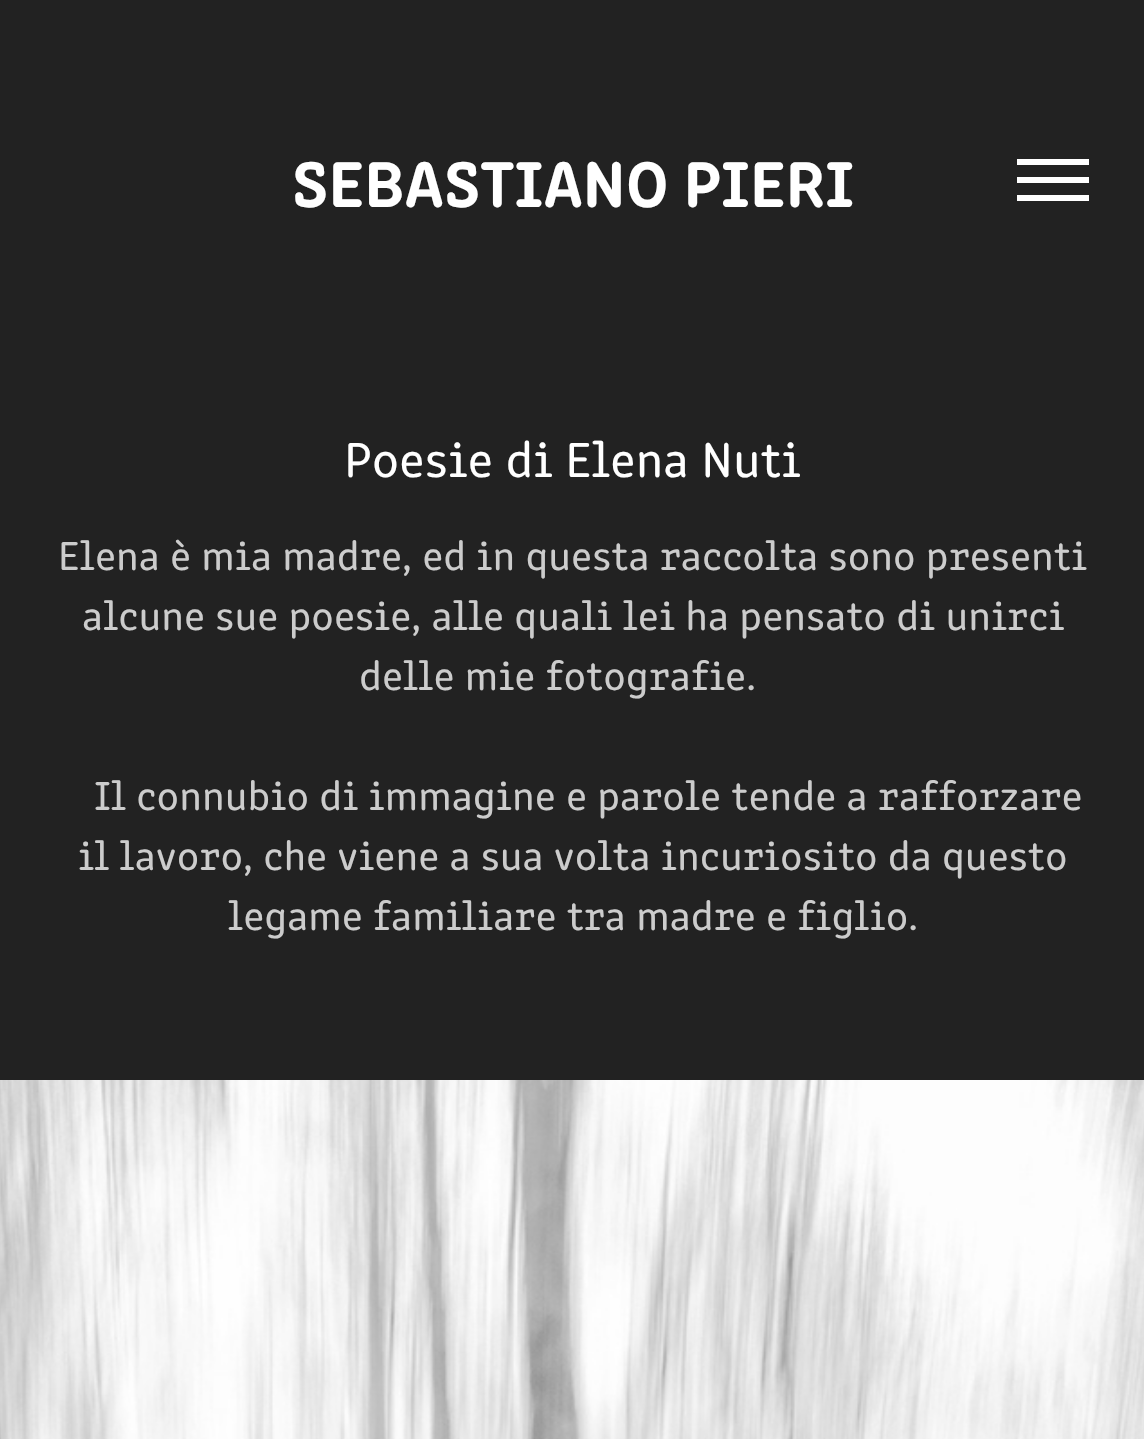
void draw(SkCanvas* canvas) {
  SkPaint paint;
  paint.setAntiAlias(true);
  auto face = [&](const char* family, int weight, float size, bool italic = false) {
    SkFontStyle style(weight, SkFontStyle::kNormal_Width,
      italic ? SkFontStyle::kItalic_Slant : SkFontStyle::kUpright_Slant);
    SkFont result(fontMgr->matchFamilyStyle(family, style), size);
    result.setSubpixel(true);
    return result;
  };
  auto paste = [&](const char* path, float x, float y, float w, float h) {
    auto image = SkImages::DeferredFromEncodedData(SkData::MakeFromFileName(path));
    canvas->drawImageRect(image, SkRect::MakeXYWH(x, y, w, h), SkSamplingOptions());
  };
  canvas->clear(0xff222222);
  {
    const struct { float x, y, w, h; SkColor color; } items[] = {
      {1017, 159, 72, 6, 0xffffffff},
      {1017, 177, 72, 6, 0xffffffff},
      {1017, 195, 72, 6, 0xffffffff},
    };
    for (auto [x, y, w, h, color] : items) {
      paint.setColor(color);
      canvas->drawRect(SkRect::MakeXYWH(x, y, w, h), paint);
    }
  }
  paste("img/1.png", 0, 1080, 1144, 359);
  auto f0 = face("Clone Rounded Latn", 700, 66);
  canvas->drawString("SEBASTIANO PIERI", 292, 207, f0, paint);
  auto f1 = face("Clone Rounded Latn", 400, 51);
  canvas->drawString("Poesie di Elena Nuti", 344, 477, f1, paint);
  auto f2 = face("Clone Rounded Latn", 400, 42);
  paint.setColor(0xffcccccc);
  {
    const struct { const char* s; float x, y; } items[] = {
      {"Elena è mia madre, ed in questa raccolta sono presenti", 58, 570},
      {"alcune sue poesie, alle quali lei ha pensato di unirci", 82, 630},
      {"delle mie fotografie.", 359, 690},
      {"Il connubio di immagine e parole tende a rafforzare", 94, 810},
      {"il lavoro, che viene a sua volta incuriosito da questo", 78, 870},
      {"legame familiare tra madre e figlio.", 228, 930},
    };
    for (auto [s, x, y] : items) {
      canvas->drawString(s, x, y, f2, paint);
    }
  }
}
